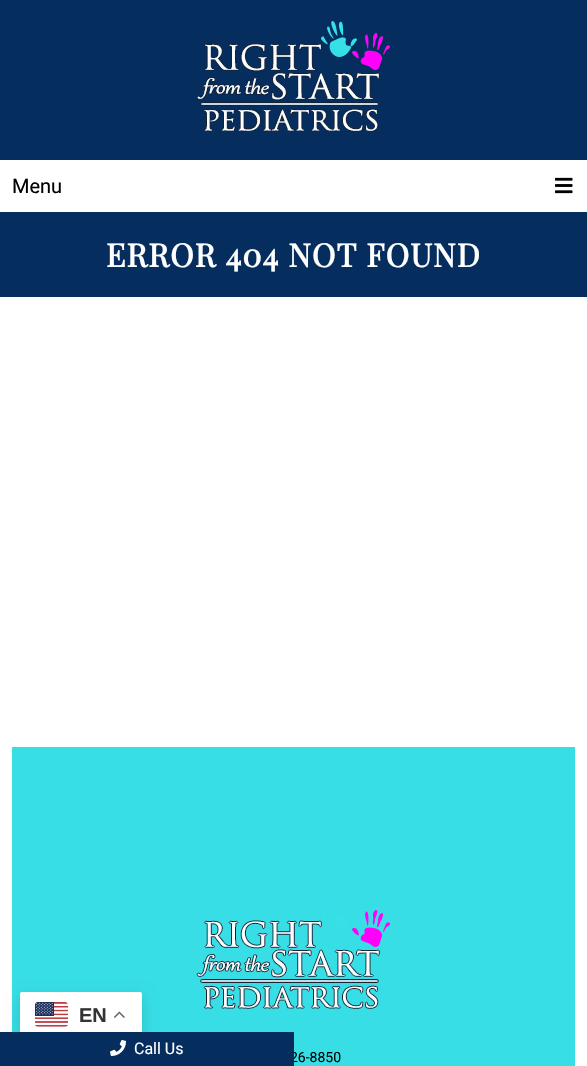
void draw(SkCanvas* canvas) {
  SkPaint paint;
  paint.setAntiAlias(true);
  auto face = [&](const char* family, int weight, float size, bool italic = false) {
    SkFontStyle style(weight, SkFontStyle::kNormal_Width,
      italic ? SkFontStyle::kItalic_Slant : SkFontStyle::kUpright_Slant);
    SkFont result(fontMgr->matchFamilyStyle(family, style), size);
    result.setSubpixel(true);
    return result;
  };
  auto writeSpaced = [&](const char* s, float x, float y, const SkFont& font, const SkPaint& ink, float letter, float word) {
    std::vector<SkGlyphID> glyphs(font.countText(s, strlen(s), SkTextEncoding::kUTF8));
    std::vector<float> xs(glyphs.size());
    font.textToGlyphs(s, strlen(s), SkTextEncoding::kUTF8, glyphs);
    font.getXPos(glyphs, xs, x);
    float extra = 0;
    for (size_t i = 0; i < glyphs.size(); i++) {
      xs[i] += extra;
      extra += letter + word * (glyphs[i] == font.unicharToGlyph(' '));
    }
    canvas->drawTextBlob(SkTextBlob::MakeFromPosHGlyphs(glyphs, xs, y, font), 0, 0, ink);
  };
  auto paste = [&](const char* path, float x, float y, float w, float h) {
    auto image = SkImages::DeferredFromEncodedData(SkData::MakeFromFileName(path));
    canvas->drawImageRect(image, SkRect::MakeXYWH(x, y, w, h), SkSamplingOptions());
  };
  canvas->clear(0xffffffff);
  paint.setColor(0xff052d5e);
  canvas->drawRect(SkRect::MakeXYWH(0, 0, 587, 160), paint);
  paste("img/1.png", 196, 21, 194, 111);
  paste("img/2.png", 555, 177, 18, 17);
  canvas->drawRect(SkRect::MakeXYWH(0, 212, 587, 85), paint);
  paint.setColor(0xff37dee6);
  canvas->drawRect(SkRect::MakeXYWH(12, 747, 563, 319), paint);
  paste("img/3.png", 196, 898, 194, 111);
  paint.setColor(0x26000000);
  paint.setMaskFilter(SkMaskFilter::MakeBlur(kNormal_SkBlurStyle, 7.5f));
  canvas->drawRoundRect(SkRect::MakeXYWH(20, 997, 122, 45), 2, 2, paint);
  paint.setMaskFilter(nullptr);
  paint.setColor(0xffffffff);
  canvas->drawRoundRect(SkRect::MakeXYWH(20, 992, 122, 45), 2, 2, paint);
  paste("img/4.png", 35, 1002, 33, 25);
  paste("img/5.png", 114, 1011, 11, 7);
  auto f0 = face("Roboto", 400, 20);
  paint.setColor(0xff000000);
  canvas->drawString("Menu", 12, 193, f0, paint);
  auto f1 = face("Playfair Display", 700, 32);
  paint.setColor(0xffffffff);
  writeSpaced("ERROR 404 NOT FOUND", 106, 267, f1, paint, 1, 0);
  auto f2 = face("Roboto", 400, 14);
  paint.setColor(0xff000000);
  canvas->drawString("26-8850", 290, 1062, f2, paint);
  auto f3 = face("Liberation Sans", 700, 20);
  paint.setColor(0xff333333);
  canvas->drawString("EN", 79, 1022, f3, paint);
  paint.setColor(0xff052d5e);
  canvas->drawRect(SkRect::MakeXYWH(0, 1032, 294, 34), paint);
  paste("img/6.png", 110, 1040, 16, 16);
  auto f4 = face("Roboto", 400, 16);
  paint.setColor(0xffffffff);
  canvas->drawString("Call Us", 134, 1054, f4, paint);
}
